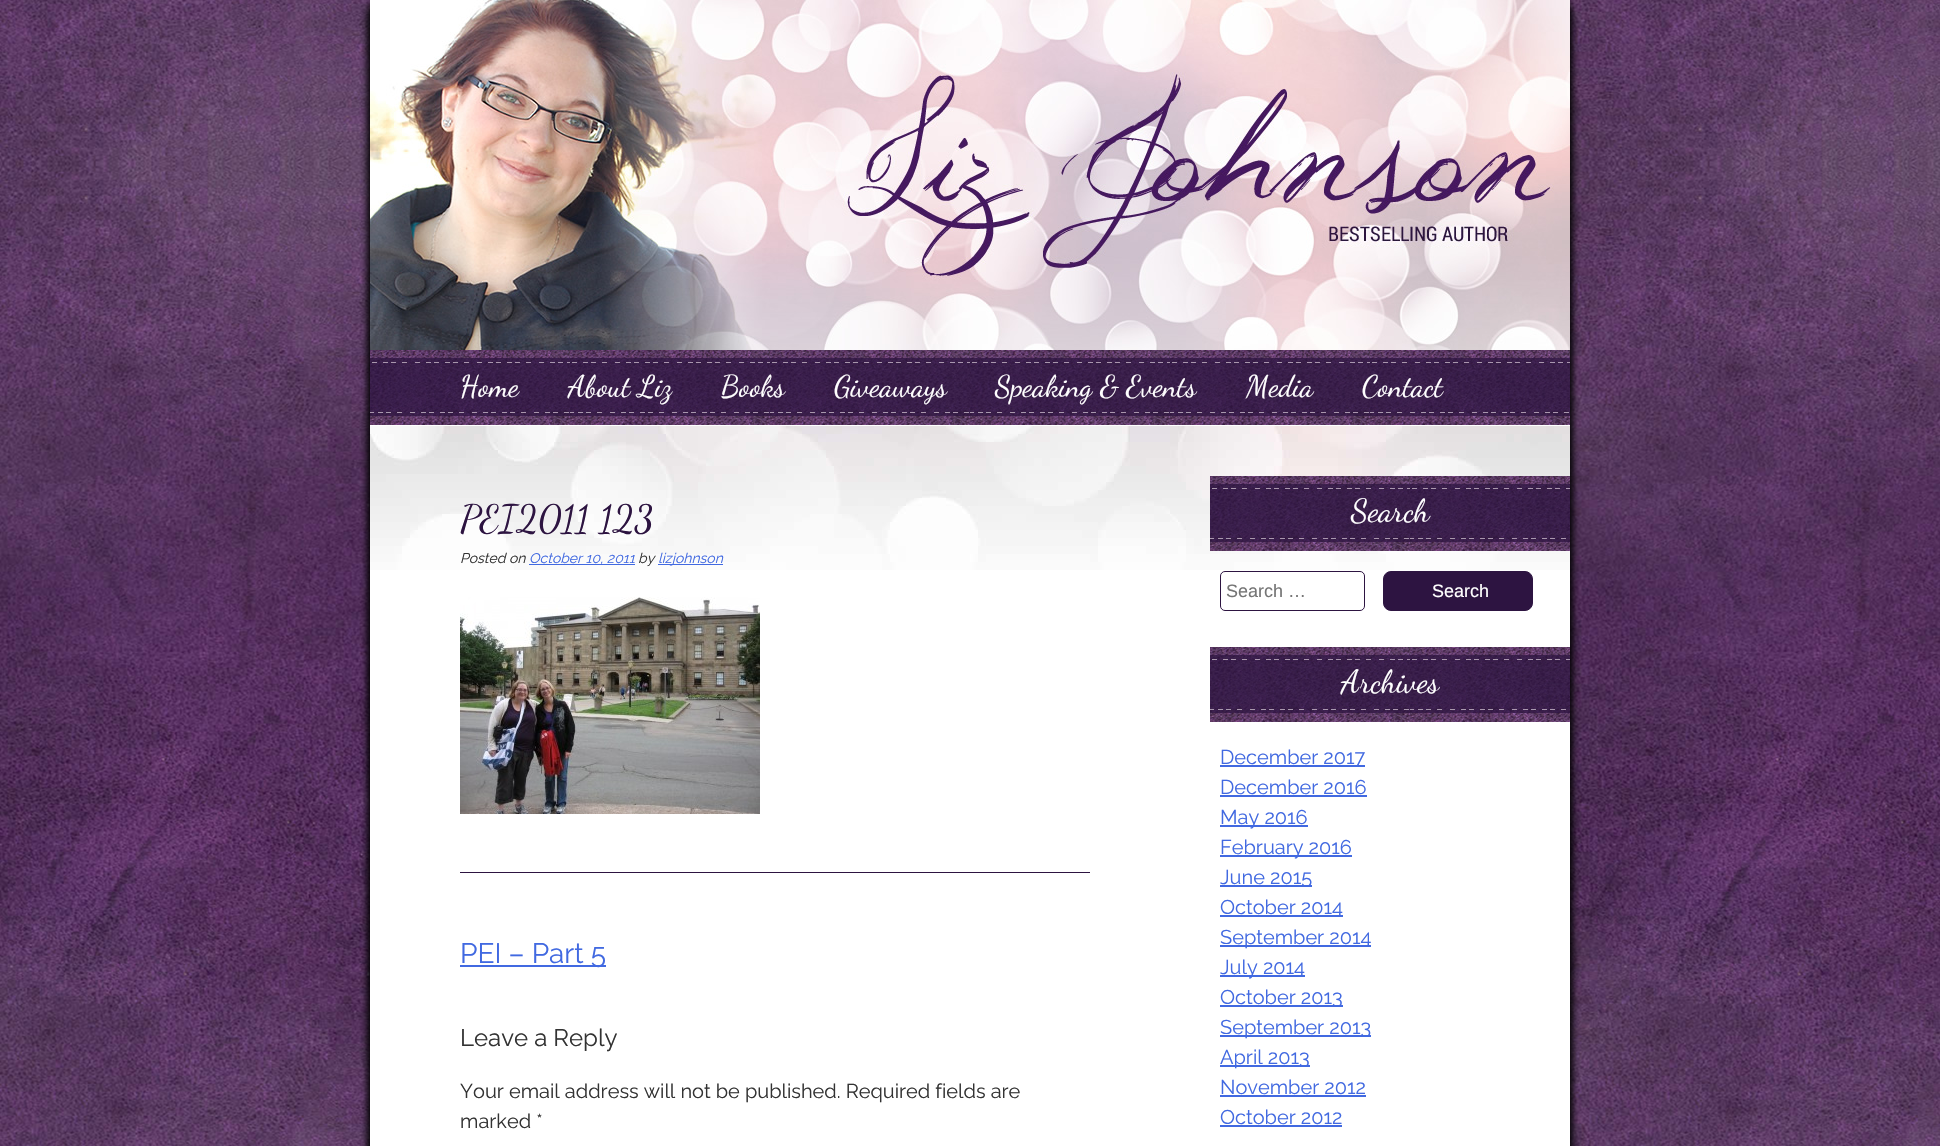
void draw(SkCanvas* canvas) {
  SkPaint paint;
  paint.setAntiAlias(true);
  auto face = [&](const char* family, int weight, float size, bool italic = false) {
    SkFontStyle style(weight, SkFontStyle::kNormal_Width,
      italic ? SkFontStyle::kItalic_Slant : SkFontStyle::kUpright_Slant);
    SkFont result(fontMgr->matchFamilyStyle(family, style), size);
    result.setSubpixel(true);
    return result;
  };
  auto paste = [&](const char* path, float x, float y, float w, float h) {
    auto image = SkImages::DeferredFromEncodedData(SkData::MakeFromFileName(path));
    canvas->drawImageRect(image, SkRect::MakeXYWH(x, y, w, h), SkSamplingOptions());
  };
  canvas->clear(0xffffffff);
  paste("img/1.png", 0, 0, 1940, 1146);
  paint.setColor(0xff000000);
  paint.setMaskFilter(SkMaskFilter::MakeBlur(kNormal_SkBlurStyle, 3.5f));
  canvas->drawRoundRect(SkRect::MakeXYWH(367, -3, 1206, 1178), 18, 18, paint);
  paint.setMaskFilter(nullptr);
  paint.setColor(0xffffffff);
  canvas->drawRect(SkRect::MakeXYWH(370, 425, 1200, 721), paint);
  paste("img/2.png", 370, 0, 1200, 350);
  paste("img/3.png", 370, 350, 1200, 75);
  paste("img/4.png", 370, 426, 1200, 144);
  paint.setColor(0xff4169e1);
  canvas->drawRect(SkRect::MakeXYWH(529, 564, 106, 1), paint);
  canvas->drawRect(SkRect::MakeXYWH(658, 564, 65, 1), paint);
  paste("img/5.png", 460, 597, 300, 217);
  paint.setColor(0xff2d1441);
  canvas->drawRect(SkRect::MakeXYWH(460, 872, 630, 1), paint);
  paint.setColor(0xff4169e1);
  canvas->drawRect(SkRect::MakeXYWH(460, 965, 146, 2), paint);
  paste("img/6.png", 1210, 476, 360, 75);
  paint.setStroke(true);
  paint.setStrokeWidth(1);
  paint.setColor(0xff2d1441);
  canvas->drawRoundRect(SkRect::MakeXYWH(1220.5f, 571.5f, 144, 39), 4.5f, 4.5f, paint);
  paint.setStroke(false);
  canvas->drawRoundRect(SkRect::MakeXYWH(1383.5f, 571.5f, 149, 39), 7.5f, 7.5f, paint);
  paint.setStroke(true);
  canvas->drawRoundRect(SkRect::MakeXYWH(1383.5f, 571.5f, 149, 39), 7.5f, 7.5f, paint);
  paste("img/6.png", 1210, 647, 360, 75);
  paint.setStroke(false);
  {
    const struct { float x, y, w, h; SkColor color; } items[] = {
      {1220, 765, 145, 2, 0xff4169e1},
      {1220, 795, 147, 2, 0xff4169e1},
      {1220, 825, 88, 2, 0xff4169e1},
      {1220, 855, 132, 2, 0xff4169e1},
      {1220, 885, 92, 2, 0xff4169e1},
      {1220, 915, 123, 2, 0xff4169e1},
      {1220, 945, 151, 2, 0xff4169e1},
      {1220, 975, 85, 2, 0xff4169e1},
      {1220, 1005, 123, 2, 0xff4169e1},
      {1220, 1035, 151, 2, 0xff4169e1},
      {1220, 1065, 90, 2, 0xff4169e1},
      {1220, 1095, 146, 2, 0xff4169e1},
      {1220, 1125, 122, 2, 0xff4169e1},
    };
    for (auto [x, y, w, h, color] : items) {
      paint.setColor(color);
      canvas->drawRect(SkRect::MakeXYWH(x, y, w, h), paint);
    }
  }
  auto f0 = face("Dancing Script", 400, 30);
  paint.setColor(0xffffffff);
  {
    const struct { const char* s; float x, y; } items[] = {
      {"Home", 460, 396},
      {"About Liz", 568, 396},
      {"Books", 721, 396},
      {"Giveaways", 834, 396},
      {"Speaking & Events", 995, 396},
      {"Media", 1246, 396},
      {"Contact", 1362, 396},
    };
    for (auto [s, x, y] : items) {
      canvas->drawString(s, x, y, f0, paint);
    }
  }
  auto f1 = face("Dancing Script", 400, 38);
  paint.setColor(0xff2d1441);
  canvas->drawString("PEI2011 123", 460, 531, f1, paint);
  auto f2 = face("Raleway", 100, 14, true);
  paint.setColor(0xff333333);
  canvas->drawString("Posted on", 460, 563, f2, paint);
  paint.setColor(0xff4169e1);
  canvas->drawString("October 10, 2011", 529, 563, f2, paint);
  paint.setColor(0xff333333);
  canvas->drawString("by", 638, 563, f2, paint);
  paint.setColor(0xff4169e1);
  canvas->drawString("lizjohnson", 658, 563, f2, paint);
  auto f3 = face("Raleway", 100, 28);
  canvas->drawString("PEI – Part 5", 460, 963, f3, paint);
  auto f4 = face("Raleway", 100, 24);
  paint.setColor(0xff333333);
  canvas->drawString("Leave a Reply", 460, 1046, f4, paint);
  auto f5 = face("Raleway", 100, 20);
  canvas->drawString("Your email address will not be published. Required fields are", 460, 1098, f5, paint);
  canvas->drawString("marked *", 460, 1128, f5, paint);
  auto f6 = face("Dancing Script", 400, 32);
  paint.setColor(0xffffffff);
  canvas->drawString("Search", 1351, 521, f6, paint);
  auto f7 = face("Liberation Sans", 400, 18);
  paint.setColor(0xff757575);
  canvas->drawString("Search …", 1226, 597, f7, paint);
  paint.setColor(0xffffffff);
  canvas->drawString("Search", 1432, 597, f7, paint);
  canvas->drawString("Archives", 1341, 692, f6, paint);
  paint.setColor(0xff4169e1);
  {
    const struct { const char* s; float x, y; } items[] = {
      {"December 2017", 1220, 764},
      {"December 2016", 1220, 794},
      {"May 2016", 1220, 824},
      {"February 2016", 1220, 854},
      {"June 2015", 1220, 884},
      {"October 2014", 1220, 914},
      {"September 2014", 1220, 944},
      {"July 2014", 1220, 974},
      {"October 2013", 1220, 1004},
      {"September 2013", 1220, 1034},
      {"April 2013", 1220, 1064},
      {"November 2012", 1220, 1094},
      {"October 2012", 1220, 1124},
    };
    for (auto [s, x, y] : items) {
      canvas->drawString(s, x, y, f5, paint);
    }
  }
}
